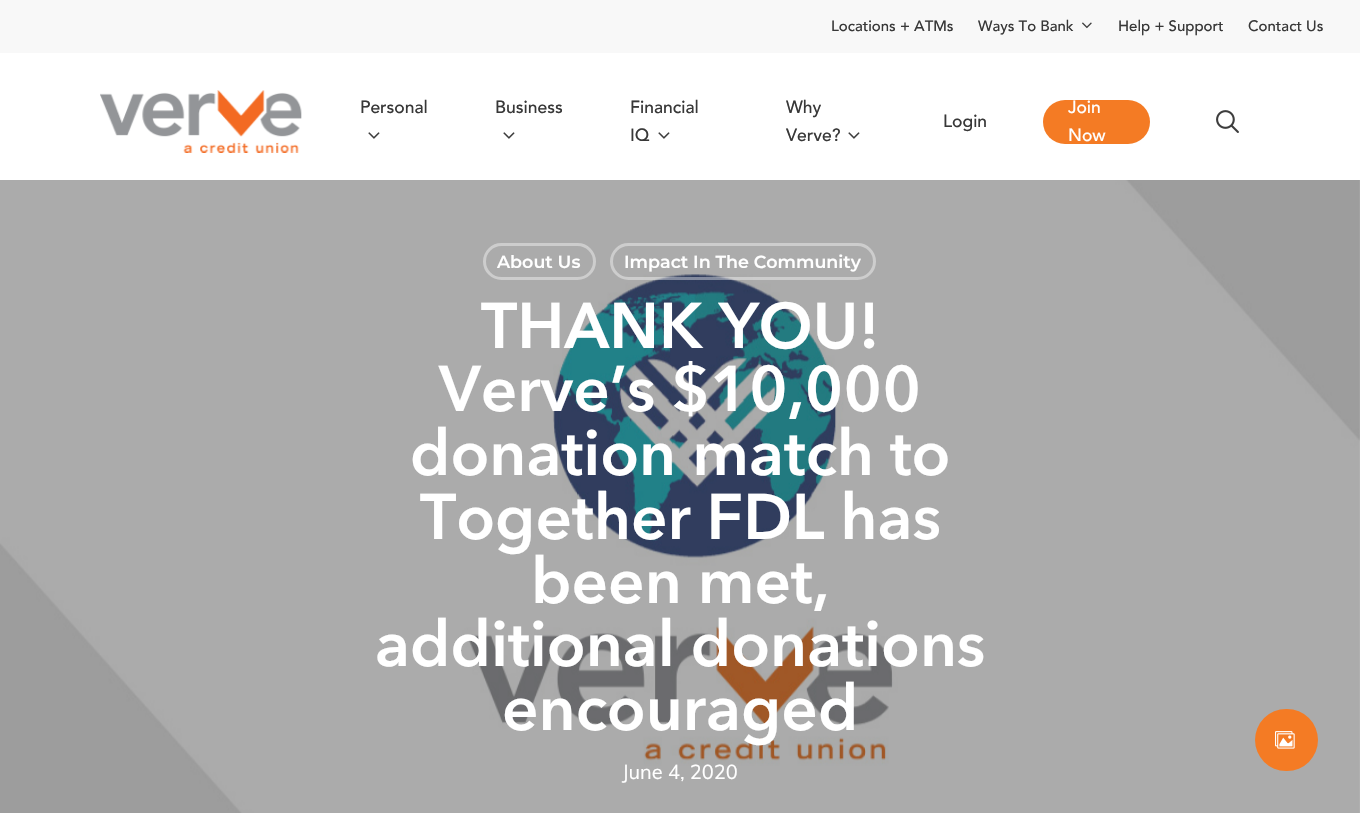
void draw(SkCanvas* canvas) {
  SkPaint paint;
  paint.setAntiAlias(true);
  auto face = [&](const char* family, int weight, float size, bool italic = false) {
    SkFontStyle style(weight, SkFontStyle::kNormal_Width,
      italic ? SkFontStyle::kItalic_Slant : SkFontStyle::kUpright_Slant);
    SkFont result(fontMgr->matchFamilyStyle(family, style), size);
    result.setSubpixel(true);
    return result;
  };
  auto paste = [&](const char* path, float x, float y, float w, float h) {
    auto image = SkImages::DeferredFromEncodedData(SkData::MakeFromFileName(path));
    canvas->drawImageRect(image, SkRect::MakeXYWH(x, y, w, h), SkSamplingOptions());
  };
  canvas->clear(0xffffffff);
  paint.setColor(0xfff8f8f8);
  canvas->drawRect(SkRect::MakeXYWH(0, 0, 1360, 53), paint);
  paste("img/1.png", 1082, 22, 10, 7);
  paste("img/2.png", 100, 90, 202, 63);
  paste("img/3.png", 368, 132, 12, 7);
  paste("img/3.png", 503, 132, 12, 7);
  paste("img/3.png", 658, 132, 12, 7);
  paste("img/3.png", 848, 132, 12, 7);
  paint.setColor(0xfff47b24);
  canvas->drawRoundRect(SkRect::MakeXYWH(1043, 100, 107, 44), 22, 22, paint);
  paste("img/4.png", 1216, 110, 23, 23);
  paste("img/5.png", 0, 180, 1360, 633);
  paint.setStroke(true);
  paint.setStrokeWidth(3);
  paint.setColor(0xffcdcdcd);
  canvas->drawRoundRect(SkRect::MakeXYWH(484.5f, 244.5f, 110, 34), 17, 17, paint);
  paint.setColor(0x66ffffff);
  canvas->drawRoundRect(SkRect::MakeXYWH(611.5f, 244.5f, 263, 34), 17, 17, paint);
  paint.setStroke(false);
  paint.setColor(0xfff47b24);
  canvas->drawRoundRect(SkRect::MakeXYWH(1255, 709, 63, 62), 31, 31, paint);
  paste("img/6.png", 1275, 731, 20, 18);
  auto f0 = face("Avenir", 500, 15);
  paint.setColor(0xff383838);
  {
    const struct { const char* s; float x, y; } items[] = {
      {"Locations + ATMs", 831, 31},
      {"Ways To Bank", 978, 31},
      {"Help + Support", 1118, 31},
      {"Contact Us", 1248, 31},
    };
    for (auto [s, x, y] : items) {
      canvas->drawString(s, x, y, f0, paint);
    }
  }
  auto f1 = face("Avenir", 500, 17.5f);
  {
    const struct { const char* s; float x, y; } items[] = {
      {"Personal", 360, 113},
      {"Business", 495, 113},
      {"Financial", 630, 113},
      {"IQ", 630, 141},
      {"Why", 786, 113},
      {"Verve?", 786, 141},
      {"Login", 943, 127},
    };
    for (auto [s, x, y] : items) {
      canvas->drawString(s, x, y, f1, paint);
    }
  }
  paint.setColor(0xffffffff);
  canvas->drawString("Join", 1068, 113, f1, paint);
  canvas->drawString("Now", 1068, 141, f1, paint);
  auto f2 = face("Montserrat", 600, 17.5f);
  canvas->drawString("About Us", 497, 268, f2, paint);
  canvas->drawString("Impact In The Community", 624, 268, f2, paint);
  auto f3 = face("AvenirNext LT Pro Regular", 700, 63.75f);
  {
    const struct { const char* s; float x, y; } items[] = {
      {"THANK YOU!", 481, 348},
      {"Verve’s $10,000", 439, 411},
      {"donation match to", 410, 475},
      {"Together FDL has", 420, 539},
      {"been met,", 531, 603},
      {"additional donations", 375, 666},
      {"encouraged", 502, 730},
    };
    for (auto [s, x, y] : items) {
      canvas->drawString(s, x, y, f3, paint);
    }
  }
  auto f4 = face("Muli", 400, 20);
  canvas->drawString("June 4, 2020", 622, 779, f4, paint);
}
